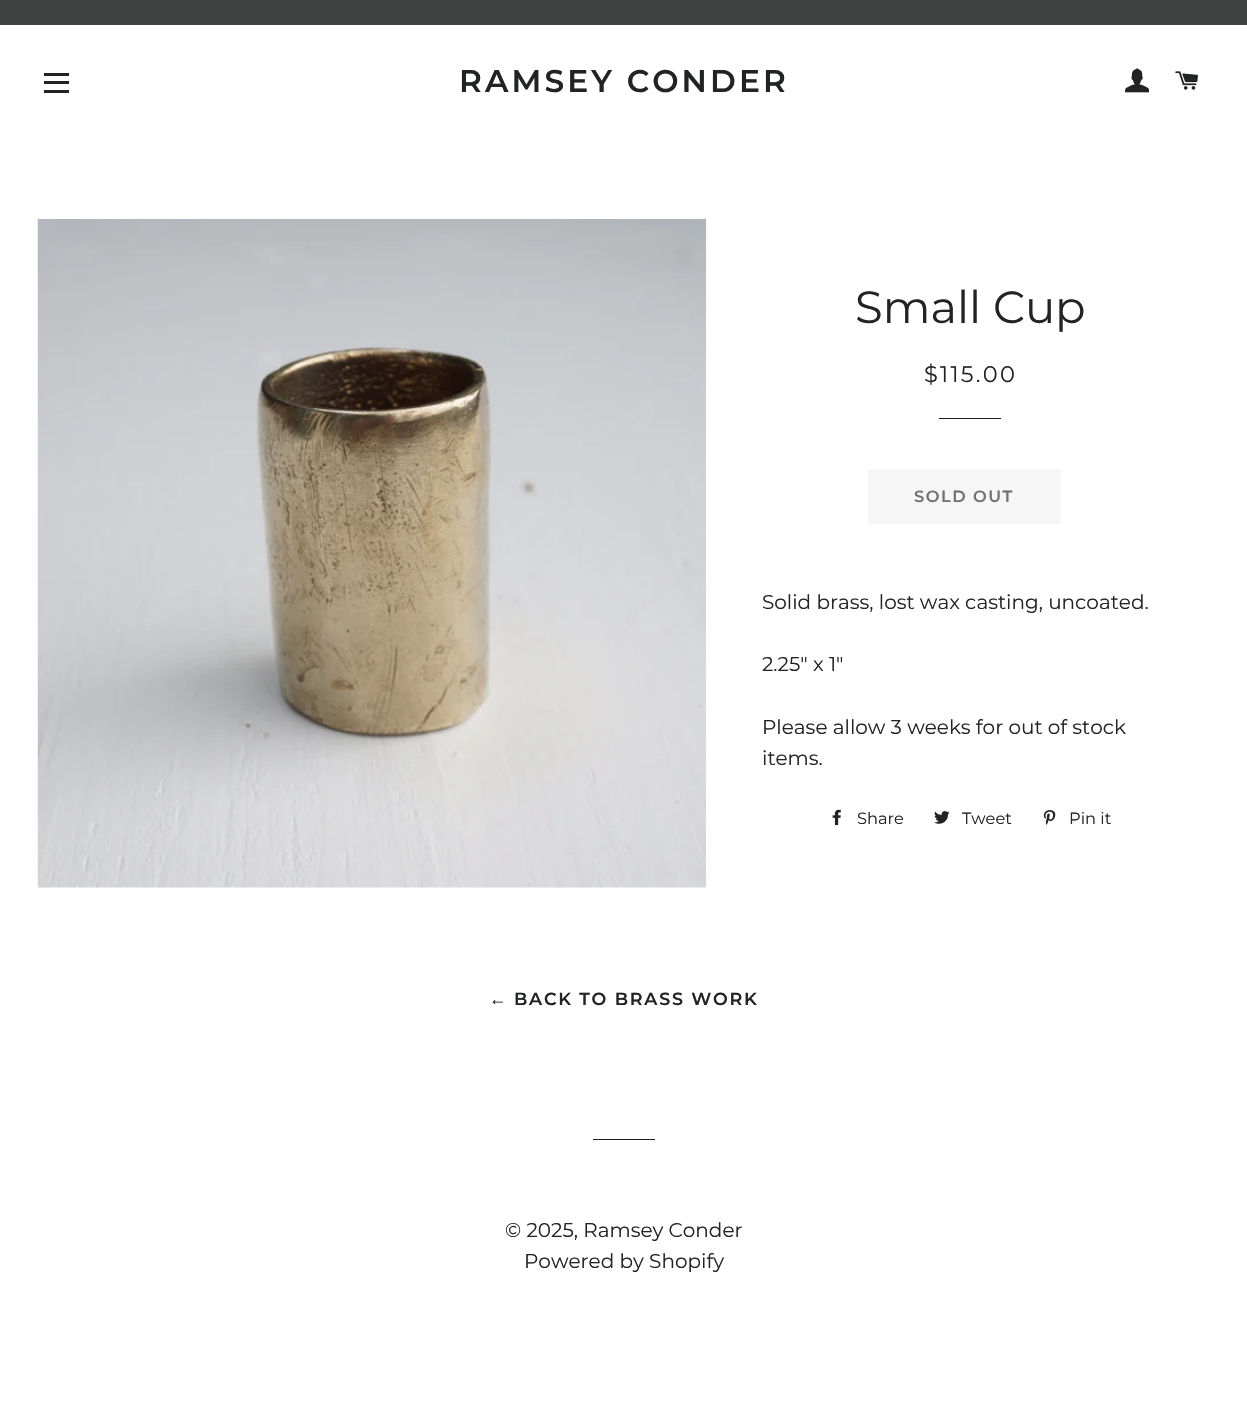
void draw(SkCanvas* canvas) {
  SkPaint paint;
  paint.setAntiAlias(true);
  auto face = [&](const char* family, int weight, float size, bool italic = false) {
    SkFontStyle style(weight, SkFontStyle::kNormal_Width,
      italic ? SkFontStyle::kItalic_Slant : SkFontStyle::kUpright_Slant);
    SkFont result(fontMgr->matchFamilyStyle(family, style), size);
    result.setSubpixel(true);
    return result;
  };
  auto writeSpaced = [&](const char* s, float x, float y, const SkFont& font, const SkPaint& ink, float letter, float word) {
    std::vector<SkGlyphID> glyphs(font.countText(s, strlen(s), SkTextEncoding::kUTF8));
    std::vector<float> xs(glyphs.size());
    font.textToGlyphs(s, strlen(s), SkTextEncoding::kUTF8, glyphs);
    font.getXPos(glyphs, xs, x);
    float extra = 0;
    for (size_t i = 0; i < glyphs.size(); i++) {
      xs[i] += extra;
      extra += letter + word * (glyphs[i] == font.unicharToGlyph(' '));
    }
    canvas->drawTextBlob(SkTextBlob::MakeFromPosHGlyphs(glyphs, xs, y, font), 0, 0, ink);
  };
  auto paste = [&](const char* path, float x, float y, float w, float h) {
    auto image = SkImages::DeferredFromEncodedData(SkData::MakeFromFileName(path));
    canvas->drawImageRect(image, SkRect::MakeXYWH(x, y, w, h), SkSamplingOptions());
  };
  canvas->clear(0xffffffff);
  {
    const struct { float x, y, w, h; SkColor color; } items[] = {
      {0, 0, 1247, 25, 0xff404242},
      {44, 73, 25, 3, 0xff222323},
      {44, 81, 25, 3, 0xff222323},
      {44, 90, 25, 3, 0xff222323},
    };
    for (auto [x, y, w, h, color] : items) {
      paint.setColor(color);
      canvas->drawRect(SkRect::MakeXYWH(x, y, w, h), paint);
    }
  }
  paste("img/1.png", 1125, 68, 25, 25);
  paste("img/2.png", 1175, 71, 23, 19);
  paste("img/3.png", 37, 218, 670, 670);
  paint.setColor(0xff1c1d1d);
  canvas->drawRect(SkRect::MakeXYWH(939, 418, 62, 1), paint);
  paint.setColor(0xfff6f6f6);
  canvas->drawRect(SkRect::MakeXYWH(868, 469, 193, 55), paint);
  paste("img/4.png", 832, 809, 9, 17);
  paste("img/5.png", 934, 811, 16, 13);
  paste("img/6.png", 1043, 810, 13, 15);
  paint.setColor(0xff1c1d1d);
  canvas->drawRect(SkRect::MakeXYWH(593, 1139, 62, 1), paint);
  auto f0 = face("Montserrat", 600, 31.25f);
  paint.setColor(0xff222323);
  writeSpaced("RAMSEY CONDER", 459, 92, f0, paint, 3.1f, 0);
  auto f1 = face("Montserrat", 400, 45);
  canvas->drawString("Small Cup", 855, 323, f1, paint);
  auto f2 = face("Montserrat", 400, 22.5f);
  writeSpaced("$115.00", 924, 382, f2, paint, 2.25f, 0);
  auto f3 = face("Montserrat", 600, 16.25f);
  paint.setColor(0xff717171);
  writeSpaced("SOLD OUT", 914, 502, f3, paint, 1.5f, 0);
  auto f4 = face("Montserrat", 400, 20);
  paint.setColor(0xff222323);
  {
    const struct { const char* s; float x, y; } items[] = {
      {"Solid brass, lost wax casting, uncoated.", 762, 609},
      {"2.25\" x 1\"", 762, 671},
      {"Please allow 3 weeks for out of stock", 762, 734},
      {"items.", 762, 765},
    };
    for (auto [s, x, y] : items) {
      canvas->drawString(s, x, y, f4, paint);
    }
  }
  auto f5 = face("Montserrat", 400, 16.25f);
  {
    const struct { const char* s; float x, y; } items[] = {
      {"Share", 857, 824},
      {"Tweet", 962, 824},
      {"Pin it", 1069, 824},
    };
    for (auto [s, x, y] : items) {
      canvas->drawString(s, x, y, f5, paint);
    }
  }
  auto f6 = face("Liberation Sans", 700, 17.5f);
  writeSpaced("←", 489, 1005, f6, paint, 1.75f, 0);
  auto f7 = face("Montserrat", 600, 17.5f);
  writeSpaced("BACK TO BRASS WORK", 514, 1005, f7, paint, 1.75f, 0);
  canvas->drawString("© 2025, Ramsey Conder", 505, 1237, f4, paint);
  canvas->drawString("Powered by Shopify", 524, 1268, f4, paint);
}
